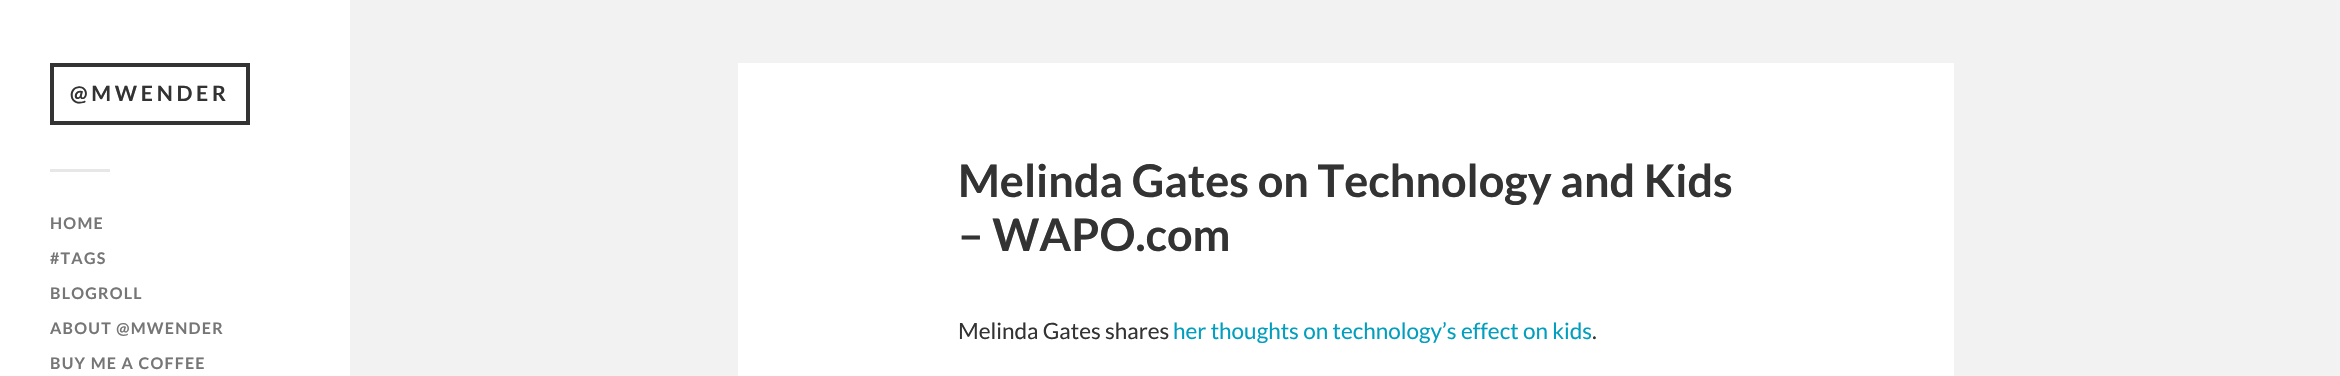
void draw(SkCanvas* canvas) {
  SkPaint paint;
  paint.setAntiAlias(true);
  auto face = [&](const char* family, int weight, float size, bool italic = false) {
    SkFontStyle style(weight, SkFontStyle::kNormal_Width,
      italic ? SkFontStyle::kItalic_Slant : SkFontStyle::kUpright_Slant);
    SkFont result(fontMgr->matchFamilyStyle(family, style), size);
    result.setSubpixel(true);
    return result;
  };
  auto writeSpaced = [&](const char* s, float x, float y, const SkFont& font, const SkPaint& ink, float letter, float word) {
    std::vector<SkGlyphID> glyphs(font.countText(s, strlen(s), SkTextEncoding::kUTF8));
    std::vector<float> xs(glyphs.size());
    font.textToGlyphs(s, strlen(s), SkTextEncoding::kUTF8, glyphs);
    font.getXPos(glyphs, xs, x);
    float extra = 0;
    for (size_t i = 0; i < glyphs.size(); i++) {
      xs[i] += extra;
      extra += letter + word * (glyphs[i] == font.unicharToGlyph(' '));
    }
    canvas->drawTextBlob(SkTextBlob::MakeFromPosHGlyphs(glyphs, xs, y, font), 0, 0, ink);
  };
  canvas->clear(0xfff2f2f2);
  paint.setColor(0xffffffff);
  canvas->drawRect(SkRect::MakeXYWH(0, 0, 350, 376), paint);
  paint.setStroke(true);
  paint.setStrokeWidth(4);
  paint.setColor(0xff333333);
  canvas->drawRect(SkRect::MakeXYWH(52, 65, 196, 58), paint);
  paint.setStroke(false);
  paint.setColor(0xffe7e7e7);
  canvas->drawRect(SkRect::MakeXYWH(50, 169, 60, 3), paint);
  paint.setColor(0xffffffff);
  canvas->drawRect(SkRect::MakeXYWH(738, 63, 1216, 313), paint);
  auto f0 = face("Lato", 700, 21.25f);
  paint.setColor(0xff333333);
  writeSpaced("@MWENDER", 70, 101, f0, paint, 3.75f, 0);
  auto f1 = face("Lato", 700, 16);
  paint.setColor(0xff767676);
  {
    const struct { const char* s; float x, y; } items[] = {
      {"HOME", 50, 229},
      {"#TAGS", 50, 264},
      {"BLOGROLL", 50, 299},
      {"ABOUT @MWENDER", 50, 334},
      {"BUY ME A COFFEE", 50, 369},
    };
    for (auto [s, x, y] : items) {
      writeSpaced(s, x, y, f1, paint, 1.25f, 0);
    }
  }
  auto f2 = face("Lato", 700, 45);
  paint.setColor(0xff333333);
  canvas->drawString("Melinda Gates on Technology and Kids", 958, 197, f2, paint);
  canvas->drawString("– WAPO.com", 958, 251, f2, paint);
  auto f3 = face("Lato", 400, 22.5f);
  canvas->drawString("Melinda Gates shares", 958, 339, f3, paint);
  paint.setColor(0xff019ebd);
  canvas->drawString("her thoughts on technology’s effect on kids", 1173, 339, f3, paint);
  paint.setColor(0xff333333);
  canvas->drawString(".", 1592, 339, f3, paint);
}
